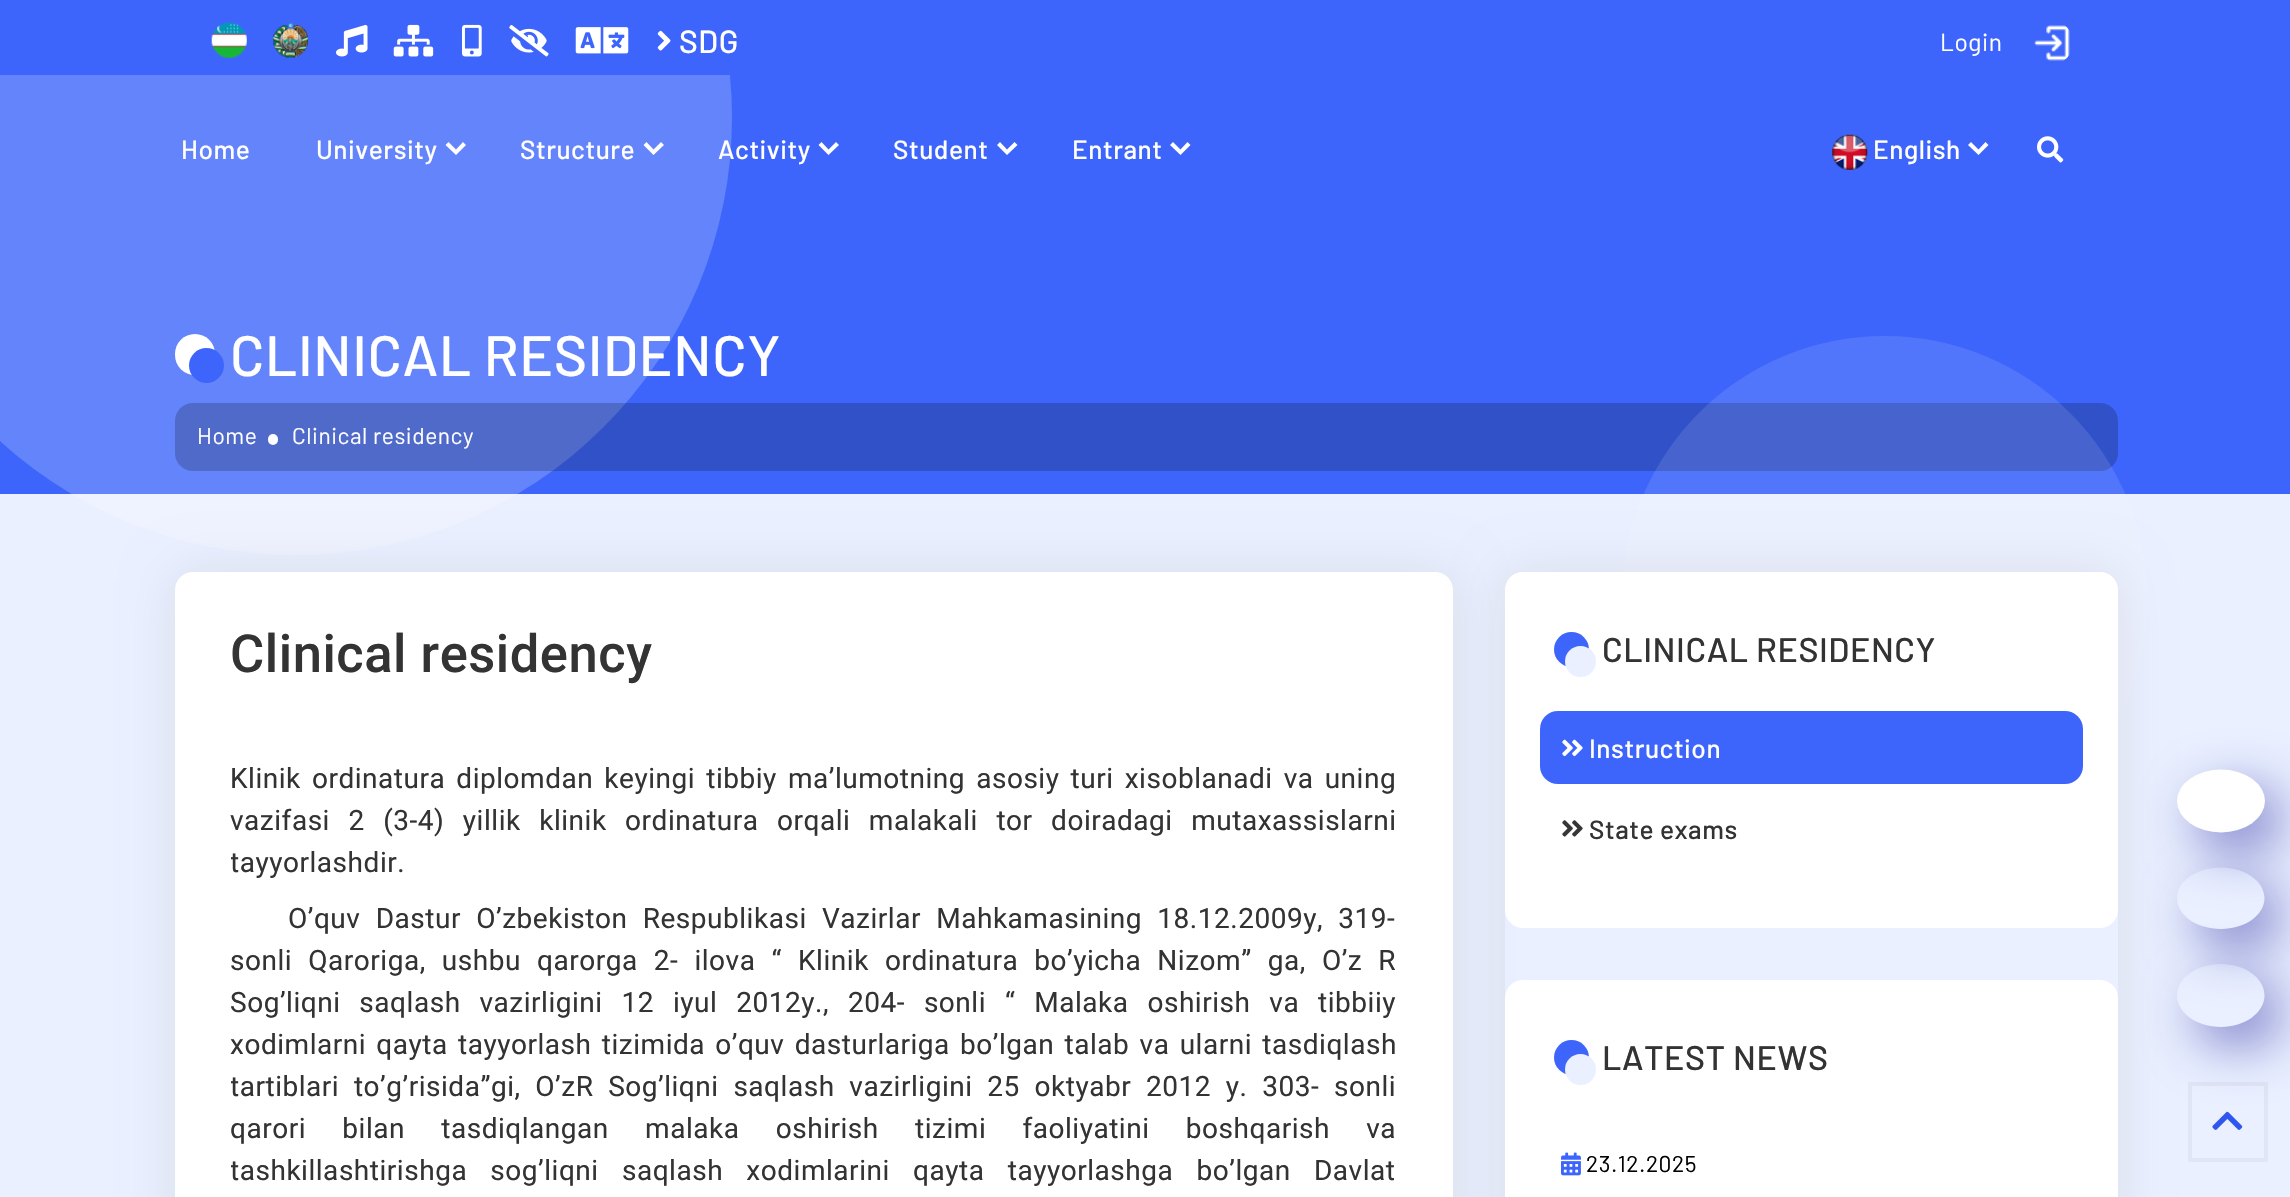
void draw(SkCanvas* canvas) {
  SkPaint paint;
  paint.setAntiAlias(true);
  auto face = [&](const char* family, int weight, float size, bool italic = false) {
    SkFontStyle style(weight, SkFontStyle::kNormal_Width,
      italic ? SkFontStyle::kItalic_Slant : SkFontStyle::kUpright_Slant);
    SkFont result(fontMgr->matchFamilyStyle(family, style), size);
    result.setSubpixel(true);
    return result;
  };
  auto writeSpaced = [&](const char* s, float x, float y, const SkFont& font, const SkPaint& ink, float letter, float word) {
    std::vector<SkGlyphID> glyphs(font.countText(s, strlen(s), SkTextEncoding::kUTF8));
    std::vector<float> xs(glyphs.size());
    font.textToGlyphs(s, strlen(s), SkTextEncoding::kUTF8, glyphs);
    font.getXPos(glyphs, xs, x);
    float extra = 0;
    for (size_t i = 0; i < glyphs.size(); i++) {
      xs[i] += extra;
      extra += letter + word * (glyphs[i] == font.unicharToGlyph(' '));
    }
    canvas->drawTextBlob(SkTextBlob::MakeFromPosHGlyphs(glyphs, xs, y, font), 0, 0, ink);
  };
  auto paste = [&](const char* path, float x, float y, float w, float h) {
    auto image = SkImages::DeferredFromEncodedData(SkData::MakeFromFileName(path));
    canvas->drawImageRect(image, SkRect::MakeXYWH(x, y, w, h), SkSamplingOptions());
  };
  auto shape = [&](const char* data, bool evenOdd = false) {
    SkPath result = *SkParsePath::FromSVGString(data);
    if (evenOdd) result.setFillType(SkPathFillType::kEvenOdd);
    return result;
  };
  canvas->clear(0xffeaf0ff);
  paint.setColor(0xff3d65fb);
  canvas->drawRect(SkRect::MakeXYWH(0, 75, 2290, 419), paint);
  paint.setColor(0x33ffffff);
  canvas->drawCircle(294.5f, 117.5f, 437.5f, paint);
  paint.setColor(0xff3d65fb);
  canvas->drawRect(SkRect::MakeXYWH(0, 0, 2290, 75), paint);
  paste("img/1.png", 211, 22, 36, 36);
  paste("img/2.png", 273, 22, 35, 36);
  paste("img/3.png", 336, 25, 32, 32);
  paste("img/4.png", 393, 24, 41, 33);
  paste("img/5.png", 462, 24, 20, 33);
  paste("img/6.png", 509, 25, 40, 32);
  paste("img/7.png", 575, 27, 54, 27);
  paste("img/8.png", 657, 30, 14, 21);
  paste("img/9.png", 2034, 25, 36, 36);
  paint.setColor(0xffffffff);
  canvas->drawPath(shape("M466 145L463 142L456 149.5L448.5 142L445.5 145L456 155Z"), paint);
  canvas->drawPath(shape("M664 145L661 142L653.5 149.5L646.5 142L643.5 145L653.5 155Z"), paint);
  canvas->drawPath(shape("M839 145L836 142L828.5 149.5L821.5 142L818.5 145L828.5 155Z"), paint);
  canvas->drawPath(shape("M1017.5 145L1014.5 142L1007 149.5L1000 142L997 145L1007 155Z"), paint);
  canvas->drawPath(shape("M1190.5 145L1187.5 142L1180.5 149.5L1173 142L1170 145L1180.5 155Z"), paint);
  paste("img/10.png", 1832, 134, 36, 36);
  canvas->drawPath(shape("M1988.5 145L1985.5 142L1978.5 149.5L1971 142L1968 145L1978.5 155Z"), paint);
  paste("img/11.png", 2037, 136, 27, 27);
  canvas->drawRoundRect(SkRect::MakeXYWH(175, 334, 40, 41), 20, 20, paint);
  paint.setColor(0xff3d65fb);
  canvas->drawCircle(206.5f, 365.5f, 17.5f, paint);
  paint.setColor(0x33000000);
  canvas->drawRoundRect(SkRect::MakeXYWH(175, 403, 1943, 68), 18, 18, paint);
  paint.setColor(0xffffffff);
  canvas->drawRoundRect(SkRect::MakeXYWH(268, 434, 10, 11), 5, 5, paint);
  paint.setColor(0x1affffff);
  canvas->drawCircle(1884.5f, 598.5f, 262.5f, paint);
  paint.setColor(0x14000000);
  paint.setMaskFilter(SkMaskFilter::MakeBlur(kNormal_SkBlurStyle, 26));
  canvas->drawRoundRect(SkRect::MakeXYWH(175, 572, 1278, 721), 18, 18, paint);
  paint.setMaskFilter(nullptr);
  paint.setColor(0xffffffff);
  canvas->drawRoundRect(SkRect::MakeXYWH(175, 572, 1278, 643), 18, 18, paint);
  canvas->save();
  canvas->clipPath(shape("M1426 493H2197V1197H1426ZM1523 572H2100C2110 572 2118 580 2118 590V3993C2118 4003 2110 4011 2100 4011H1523C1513 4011 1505 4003 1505 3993V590C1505 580 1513 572 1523 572Z", true), true);
  paint.setColor(0x14000000);
  paint.setMaskFilter(SkMaskFilter::MakeBlur(kNormal_SkBlurStyle, 26));
  canvas->drawRoundRect(SkRect::MakeXYWH(1505, 572, 613, 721), 18, 18, paint);
  paint.setMaskFilter(nullptr);
  canvas->restore();
  paint.setColor(0xffffffff);
  canvas->drawRoundRect(SkRect::MakeXYWH(1505, 572, 613, 356), 18, 18, paint);
  paint.setColor(0xff3d65fb);
  canvas->drawCircle(1571.5f, 649.5f, 17.5f, paint);
  paint.setColor(0xffeaf0ff);
  canvas->drawCircle(1580.5f, 661.5f, 15.5f, paint);
  paint.setColor(0xff3d65fb);
  canvas->drawRoundRect(SkRect::MakeXYWH(1540, 711, 543, 73), 18, 18, paint);
  paste("img/12.png", 1562, 739, 21, 18);
  paste("img/13.png", 1562, 820, 21, 17);
  paint.setColor(0xffffffff);
  canvas->drawRoundRect(SkRect::MakeXYWH(1505, 980, 613, 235), 18, 18, paint);
  paint.setColor(0xff3d65fb);
  canvas->drawCircle(1571.5f, 1057.5f, 17.5f, paint);
  paint.setColor(0xffeaf0ff);
  canvas->drawCircle(1580.5f, 1069.5f, 15.5f, paint);
  paste("img/14.png", 1561, 1152, 20, 24);
  paint.setColor(0x7300008e);
  paint.setMaskFilter(SkMaskFilter::MakeBlur(kNormal_SkBlurStyle, 26));
  canvas->drawRoundRect(SkRect::MakeXYWH(2195, 788, 87, 63), 31.5f, 31.5f, paint);
  paint.setMaskFilter(nullptr);
  paint.setColor(0xffffffff);
  canvas->drawOval(SkRect::MakeXYWH(2177, 769.5f, 88, 63), paint);
  canvas->save();
  canvas->clipPath(shape("M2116 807H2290V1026H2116ZM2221 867.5C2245 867.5 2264.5 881.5 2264.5 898C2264.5 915 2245 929 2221 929C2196.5 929 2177 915 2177 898C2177 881.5 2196.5 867.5 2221 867.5Z", true), true);
  paint.setColor(0x7300008e);
  paint.setMaskFilter(SkMaskFilter::MakeBlur(kNormal_SkBlurStyle, 26));
  canvas->drawRoundRect(SkRect::MakeXYWH(2195, 886, 87, 61), 30.5f, 30.5f, paint);
  paint.setMaskFilter(nullptr);
  canvas->restore();
  canvas->save();
  canvas->clipPath(shape("M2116 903H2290V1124H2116ZM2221 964C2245 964 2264.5 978 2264.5 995.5C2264.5 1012.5 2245 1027 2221 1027C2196.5 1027 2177 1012.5 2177 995.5C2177 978 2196.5 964 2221 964Z", true), true);
  paint.setMaskFilter(SkMaskFilter::MakeBlur(kNormal_SkBlurStyle, 26));
  canvas->drawRoundRect(SkRect::MakeXYWH(2195, 982, 87, 63), 31.5f, 31.5f, paint);
  paint.setMaskFilter(nullptr);
  canvas->restore();
  paint.setStroke(true);
  paint.setStrokeWidth(4);
  paint.setColor(0x0a000000);
  canvas->drawRect(SkRect::MakeXYWH(2190, 1084, 76, 76), paint);
  paste("img/15.png", 2212, 1111, 31, 19);
  auto f0 = face("Barlow", 500, 32);
  paint.setStroke(false);
  paint.setColor(0xffffffff);
  writeSpaced("SDG", 679, 53, f0, paint, 0.53f, 0);
  auto f1 = face("Barlow", 400, 24.5f);
  writeSpaced("Login", 1940, 51, f1, paint, 0.53f, 0);
  auto f2 = face("Barlow", 500, 26.25f);
  {
    const struct { const char* s; float x, y; } items[] = {
      {"Home", 181, 159},
      {"University", 316, 159},
      {"Structure", 520, 159},
      {"Activity", 718, 159},
      {"Student", 893, 159},
      {"Entrant", 1072, 159},
      {"English", 1873, 159},
    };
    for (auto [s, x, y] : items) {
      writeSpaced(s, x, y, f2, paint, 0.53f, 0);
    }
  }
  auto f3 = face("Barlow", 500, 56.9f);
  writeSpaced("CLINICAL RESIDENCY", 230, 376, f3, paint, 0.53f, 0);
  auto f4 = face("Barlow", 400, 22.75f);
  writeSpaced("Home", 197, 444, f4, paint, 0.53f, 0);
  writeSpaced("Clinical residency", 292, 444, f4, paint, 0.53f, 0);
  auto f5 = face("Roboto", 500, 52.5f);
  paint.setColor(0xff333333);
  writeSpaced("Clinical residency", 230, 672, f5, paint, 0.53f, 0);
  auto f6 = face("Roboto", 400, 28);
  writeSpaced("Klinik ordinatura diplomdan keyingi tibbiy maʼlumotning asosiy turi xisoblanadi va uning", 230, 788, f6, paint, 0.53f, 3.6f);
  writeSpaced("vazifasi 2 (3-4) yillik klinik ordinatura orqali malakali tor doiradagi mutaxassislarni", 230, 830, f6, paint, 0.53f, 11);
  canvas->save();
  canvas->clipRect(SkRect::MakeXYWH(231, 758, 1166, 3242));
  writeSpaced("tayyorlashdir.", 230, 872, f6, paint, 0.53f, 0);
  canvas->restore();
  writeSpaced("Oʼquv Dastur Oʼzbekiston Respublikasi Vazirlar Mahkamasining 18.12.2009y, 319-", 288, 928, f6, paint, 0.53f, 7.75f);
  writeSpaced("sonli Qaroriga, ushbu qarorga 2- ilova “ Klinik ordinatura boʼyicha Nizom” ga, Oʼz R", 230, 970, f6, paint, 0.53f, 8.6f);
  writeSpaced("Sogʼliqni saqlash vazirligini 12 iyul 2012y., 204- sonli “ Malaka oshirish va tibbiiy", 230, 1012, f6, paint, 0.53f, 11.4f);
  writeSpaced("xodimlarni qayta tayyorlash tizimida oʼquv dasturlariga boʼlgan talab va ularni tasdiqlash", 230, 1054, f6, paint, 0.53f, 2.75f);
  canvas->save();
  canvas->clipRect(SkRect::MakeXYWH(231, 758, 1166, 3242));
  writeSpaced("tartiblari toʼgʼrisida”gi, OʼzR Sogʼliqni saqlash vazirligini 25 oktyabr 2012 y. 303- sonli", 230, 1096, f6, paint, 0.53f, 7.25f);
  canvas->restore();
  writeSpaced("qarori bilan tasdiqlangan malaka oshirish tizimi faoliyatini boshqarish va", 230, 1138, f6, paint, 0.53f, 28.75f);
  canvas->save();
  canvas->clipRect(SkRect::MakeXYWH(231, 758, 1166, 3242));
  writeSpaced("tashkillashtirishga sogʼliqni saqlash xodimlarini qayta tayyorlashga boʼlgan Davlat", 230, 1180, f6, paint, 0.53f, 15.75f);
  canvas->restore();
  auto f7 = face("Barlow", 500, 34.1f);
  writeSpaced("CLINICAL RESIDENCY", 1602, 662, f7, paint, 0.53f, 0);
  paint.setColor(0xffffffff);
  writeSpaced("Instruction", 1589, 758, f2, paint, 0.53f, 0);
  paint.setColor(0xff333333);
  writeSpaced("State exams", 1589, 839, f2, paint, 0.53f, 0);
  writeSpaced("LATEST NEWS", 1602, 1070, f7, paint, 0.53f, 0);
  paint.setColor(0xff000000);
  writeSpaced("23.12.2025", 1586, 1172, f4, paint, 0.53f, 0);
}
